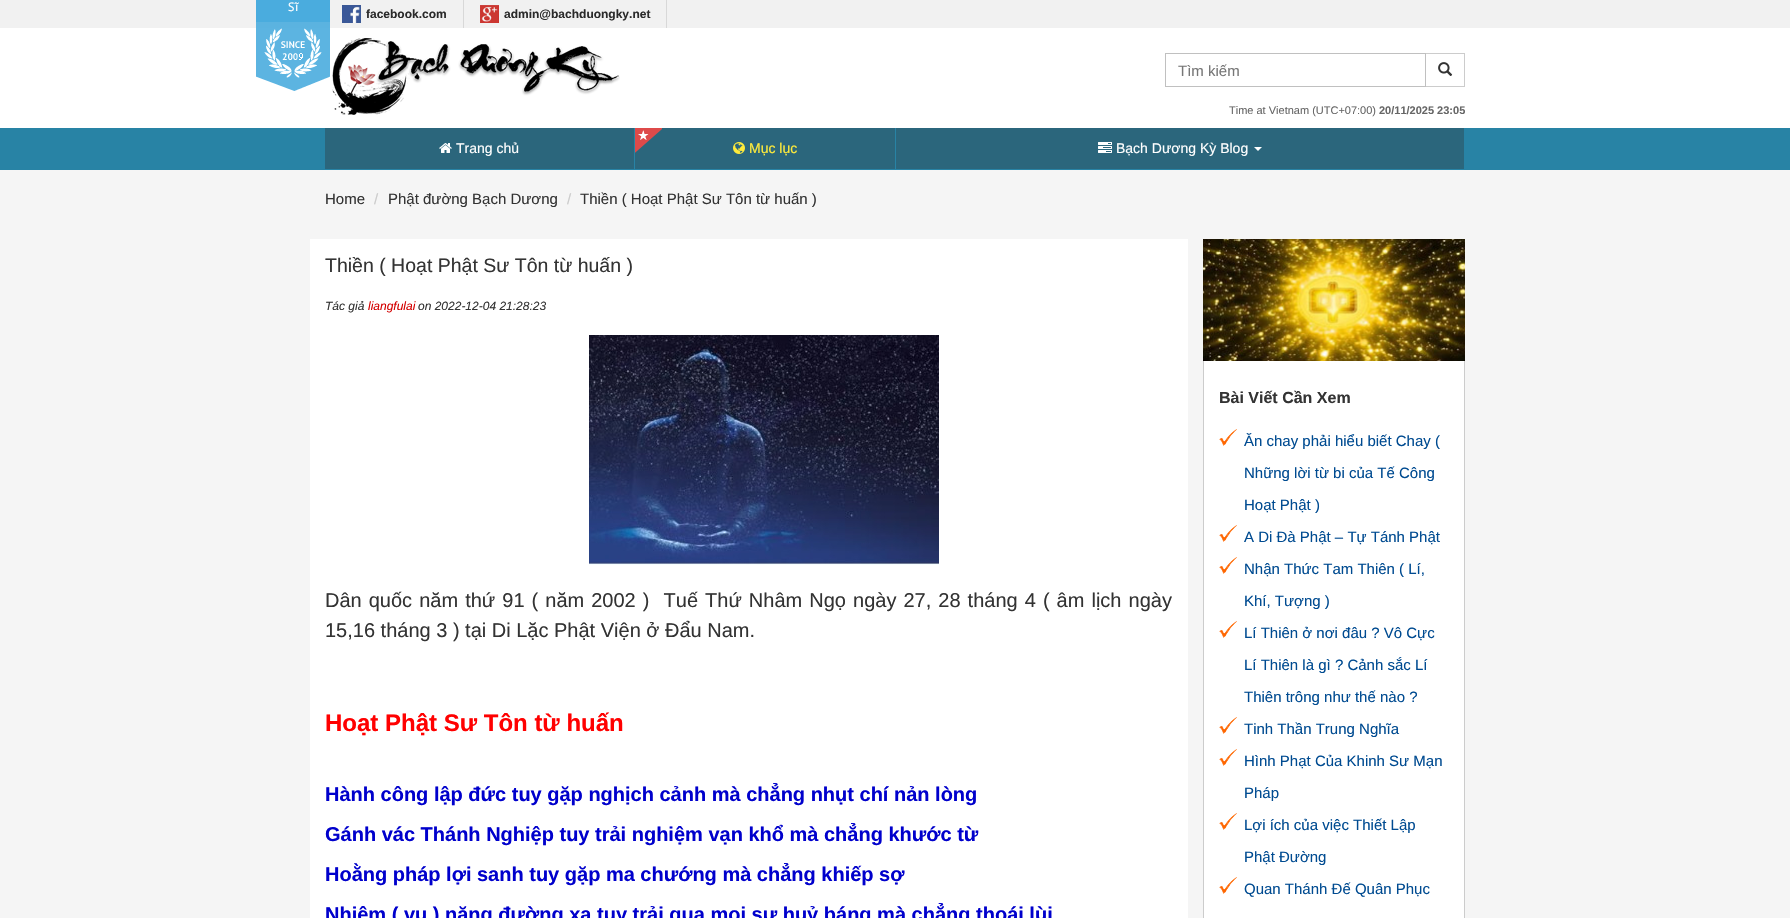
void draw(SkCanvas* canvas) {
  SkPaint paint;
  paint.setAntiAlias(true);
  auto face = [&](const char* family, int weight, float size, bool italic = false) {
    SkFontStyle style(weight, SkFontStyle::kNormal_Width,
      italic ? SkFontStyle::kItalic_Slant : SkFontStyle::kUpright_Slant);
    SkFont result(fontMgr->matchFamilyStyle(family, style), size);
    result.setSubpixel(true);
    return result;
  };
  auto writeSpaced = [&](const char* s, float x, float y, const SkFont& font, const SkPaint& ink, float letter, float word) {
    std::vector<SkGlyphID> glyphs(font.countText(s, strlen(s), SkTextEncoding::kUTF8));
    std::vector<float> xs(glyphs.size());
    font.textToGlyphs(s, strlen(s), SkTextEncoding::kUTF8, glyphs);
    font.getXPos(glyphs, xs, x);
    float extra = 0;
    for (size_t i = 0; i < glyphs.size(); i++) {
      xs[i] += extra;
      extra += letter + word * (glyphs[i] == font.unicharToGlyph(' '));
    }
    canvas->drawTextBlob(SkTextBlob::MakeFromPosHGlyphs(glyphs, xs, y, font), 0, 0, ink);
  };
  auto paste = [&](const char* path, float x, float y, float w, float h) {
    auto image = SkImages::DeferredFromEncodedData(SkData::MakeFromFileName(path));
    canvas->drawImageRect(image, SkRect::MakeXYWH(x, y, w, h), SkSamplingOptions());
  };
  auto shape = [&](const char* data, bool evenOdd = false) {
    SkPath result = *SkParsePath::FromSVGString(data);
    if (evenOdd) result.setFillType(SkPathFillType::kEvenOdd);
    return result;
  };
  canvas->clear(0xfff5f5f5);
  {
    const struct { float x, y, w, h; SkColor color; } items[] = {
      {0, 28, 1790, 100, 0xffffffff},
      {0, 0, 1790, 28, 0xfff1f1f1},
      {256, 0, 74, 22, 0xff4aacde},
    };
    for (auto [x, y, w, h, color] : items) {
      paint.setColor(color);
      canvas->drawRect(SkRect::MakeXYWH(x, y, w, h), paint);
    }
  }
  paste("img/1.png", 256, 22, 74, 69);
  paint.setColor(0xffd8d8d8);
  canvas->drawRect(SkRect::MakeXYWH(463, 0, 1, 28), paint);
  paste("img/2.png", 342, 5, 19, 18);
  canvas->drawRect(SkRect::MakeXYWH(666, 0, 1, 28), paint);
  paste("img/3.png", 480, 5, 19, 18);
  paste("img/4.png", 332, 38, 288, 77);
  paint.setStroke(true);
  paint.setStrokeWidth(1);
  paint.setColor(0xffcccccc);
  canvas->drawRect(SkRect::MakeXYWH(1425.5f, 53.5f, 39, 33), paint);
  paint.setColor(0xffc0c0c0);
  canvas->drawRect(SkRect::MakeXYWH(1165.5f, 53.5f, 260, 33), paint);
  paste("img/5.png", 1438, 62, 15, 14);
  paint.setStroke(false);
  paint.setColor(0xff2883a5);
  canvas->drawRect(SkRect::MakeXYWH(0, 128, 1790, 42), paint);
  paint.setColor(0xff2b667c);
  canvas->drawRect(SkRect::MakeXYWH(325, 128, 309, 41), paint);
  paste("img/6.png", 439, 143, 13, 10);
  canvas->drawRect(SkRect::MakeXYWH(635, 128, 260, 41), paint);
  paste("img/7.png", 635, 128, 27, 25);
  paste("img/8.png", 733, 142, 12, 12);
  canvas->drawRect(SkRect::MakeXYWH(896, 128, 568, 41), paint);
  paste("img/9.png", 1098, 142, 14, 11);
  paint.setColor(0xffffffff);
  canvas->drawPath(shape("M1254 147H1262L1258 151Z"), paint);
  canvas->drawRect(SkRect::MakeXYWH(310, 239, 878, 679), paint);
  paste("img/10.png", 589, 335, 350, 230);
  canvas->drawRect(SkRect::MakeXYWH(1204, 361, 260, 557), paint);
  paste("img/11.png", 1203, 239, 262, 122);
  paint.setColor(0xffcccccc);
  canvas->drawRect(SkRect::MakeXYWH(1464, 361, 1, 557), paint);
  canvas->drawRect(SkRect::MakeXYWH(1203, 361, 1, 557), paint);
  paste("img/12.png", 1219, 429, 18, 17);
  paste("img/12.png", 1219, 525, 18, 17);
  paste("img/12.png", 1219, 557, 18, 17);
  paste("img/12.png", 1219, 621, 18, 17);
  paste("img/12.png", 1219, 717, 18, 17);
  paste("img/12.png", 1219, 749, 18, 17);
  paste("img/12.png", 1219, 813, 18, 17);
  paste("img/12.png", 1219, 877, 18, 17);
  auto f0 = face("PT Sans", 400, 12);
  paint.setColor(0xffffffff);
  canvas->drawString("S", 288, 11, f0, paint);
  auto f1 = face("Liberation Sans", 400, 12);
  canvas->drawString("ĩ", 295, 11, f1, paint);
  auto f2 = face("Liberation Sans", 700, 12);
  paint.setColor(0xff2a2a2a);
  canvas->drawString("facebook.com", 366, 18, f2, paint);
  canvas->drawString("admin@bachduongky.net", 504, 18, f2, paint);
  auto f3 = face("Liberation Sans", 400, 15);
  paint.setColor(0xff777777);
  canvas->drawString("Tìm kiếm", 1178, 76, f3, paint);
  auto f4 = face("Liberation Sans", 400, 11);
  paint.setColor(0xff666666);
  canvas->drawString("Time at Vietnam (UTC+07:00)", 1229, 114, f4, paint);
  auto f5 = face("Liberation Sans", 700, 11);
  canvas->drawString("20/11/2025 23:05", 1379, 114, f5, paint);
  auto f6 = face("Liberation Sans", 400, 14);
  paint.setColor(0xffffffff);
  canvas->drawString("Trang chủ", 456, 153, f6, paint);
  paint.setColor(0xffffeb3b);
  canvas->drawString("Mục lục", 749, 153, f6, paint);
  paint.setColor(0xffffffff);
  canvas->drawString("Bạch Dương Kỳ Blog", 1116, 153, f6, paint);
  paint.setColor(0xff333333);
  canvas->drawString("Home", 325, 204, f3, paint);
  paint.setColor(0xffcccccc);
  canvas->drawString("/", 374, 204, f3, paint);
  paint.setColor(0xff333333);
  canvas->drawString("Phật đường Bạch Dương", 388, 204, f3, paint);
  paint.setColor(0xffcccccc);
  canvas->drawString("/", 567, 204, f3, paint);
  paint.setColor(0xff333333);
  canvas->drawString("Thiền ( Hoạt Phật Sư Tôn từ huấn )", 580, 204, f3, paint);
  auto f7 = face("Liberation Sans", 400, 19.5f);
  canvas->drawString("Thiền ( Hoạt Phật Sư Tôn từ huấn )", 325, 272, f7, paint);
  auto f8 = face("Liberation Sans", 400, 12, true);
  canvas->drawString("Tác giả", 325, 310, f8, paint);
  paint.setColor(0xffd40000);
  canvas->drawString("liangfulai", 368, 310, f8, paint);
  paint.setColor(0xff333333);
  canvas->drawString("on 2022-12-04 21:28:23", 418, 310, f8, paint);
  auto f9 = face("Liberation Sans", 400, 20);
  writeSpaced("Dân quốc năm thứ 91 ( năm 2002 )  Tuế Thứ Nhâm Ngọ ngày 27, 28 tháng 4 ( âm lịch ngày", 325, 607, f9, paint, 0, 1.5f);
  canvas->drawString("15,16 tháng 3 ) tại Di Lặc Phật Viện ở Đẩu Nam.", 325, 637, f9, paint);
  auto f10 = face("Liberation Sans", 700, 24);
  paint.setColor(0xffff0000);
  canvas->drawString("Hoạt Phật Sư Tôn từ huấn", 325, 731, f10, paint);
  auto f11 = face("Liberation Sans", 700, 20);
  paint.setColor(0xff0000cc);
  {
    const struct { const char* s; float x, y; } items[] = {
      {"Hành công lập đức tuy gặp nghịch cảnh mà chẳng nhụt chí nản lòng", 325, 801},
      {"Gánh vác Thánh Nghiệp tuy trải nghiệm vạn khổ mà chẳng khước từ", 325, 841},
      {"Hoằng pháp lợi sanh tuy gặp ma chướng mà chẳng khiếp sợ", 325, 881},
      {"Nhiệm ( vụ ) nặng đường xa tuy trải qua mọi sự huỷ báng mà chẳng thoái lùi", 325, 921},
    };
    for (auto [s, x, y] : items) {
      canvas->drawString(s, x, y, f11, paint);
    }
  }
  auto f12 = face("Liberation Sans", 700, 16);
  paint.setColor(0xff333333);
  canvas->drawString("Bài Viết Cần Xem", 1219, 403, f12, paint);
  paint.setColor(0xff004b91);
  {
    const struct { const char* s; float x, y; } items[] = {
      {"Ăn chay phải hiểu biết Chay (", 1244, 446},
      {"Những lời từ bi của Tế Công", 1244, 478},
      {"Hoạt Phật )", 1244, 510},
      {"A Di Đà Phật – Tự Tánh Phật", 1244, 542},
      {"Nhận Thức Tam Thiên ( Lí,", 1244, 574},
      {"Khí, Tượng )", 1244, 606},
      {"Lí Thiên ở nơi đâu ? Vô Cực", 1244, 638},
      {"Lí Thiên là gì ? Cảnh sắc Lí", 1244, 670},
      {"Thiên trông như thế nào ?", 1244, 702},
      {"Tinh Thần Trung Nghĩa", 1244, 734},
      {"Hình Phạt Của Khinh Sư Mạn", 1244, 766},
      {"Pháp", 1244, 798},
      {"Lợi ích của việc Thiết Lập", 1244, 830},
      {"Phật Đường", 1244, 862},
      {"Quan Thánh Đế Quân Phục", 1244, 894},
    };
    for (auto [s, x, y] : items) {
      canvas->drawString(s, x, y, f3, paint);
    }
  }
}
